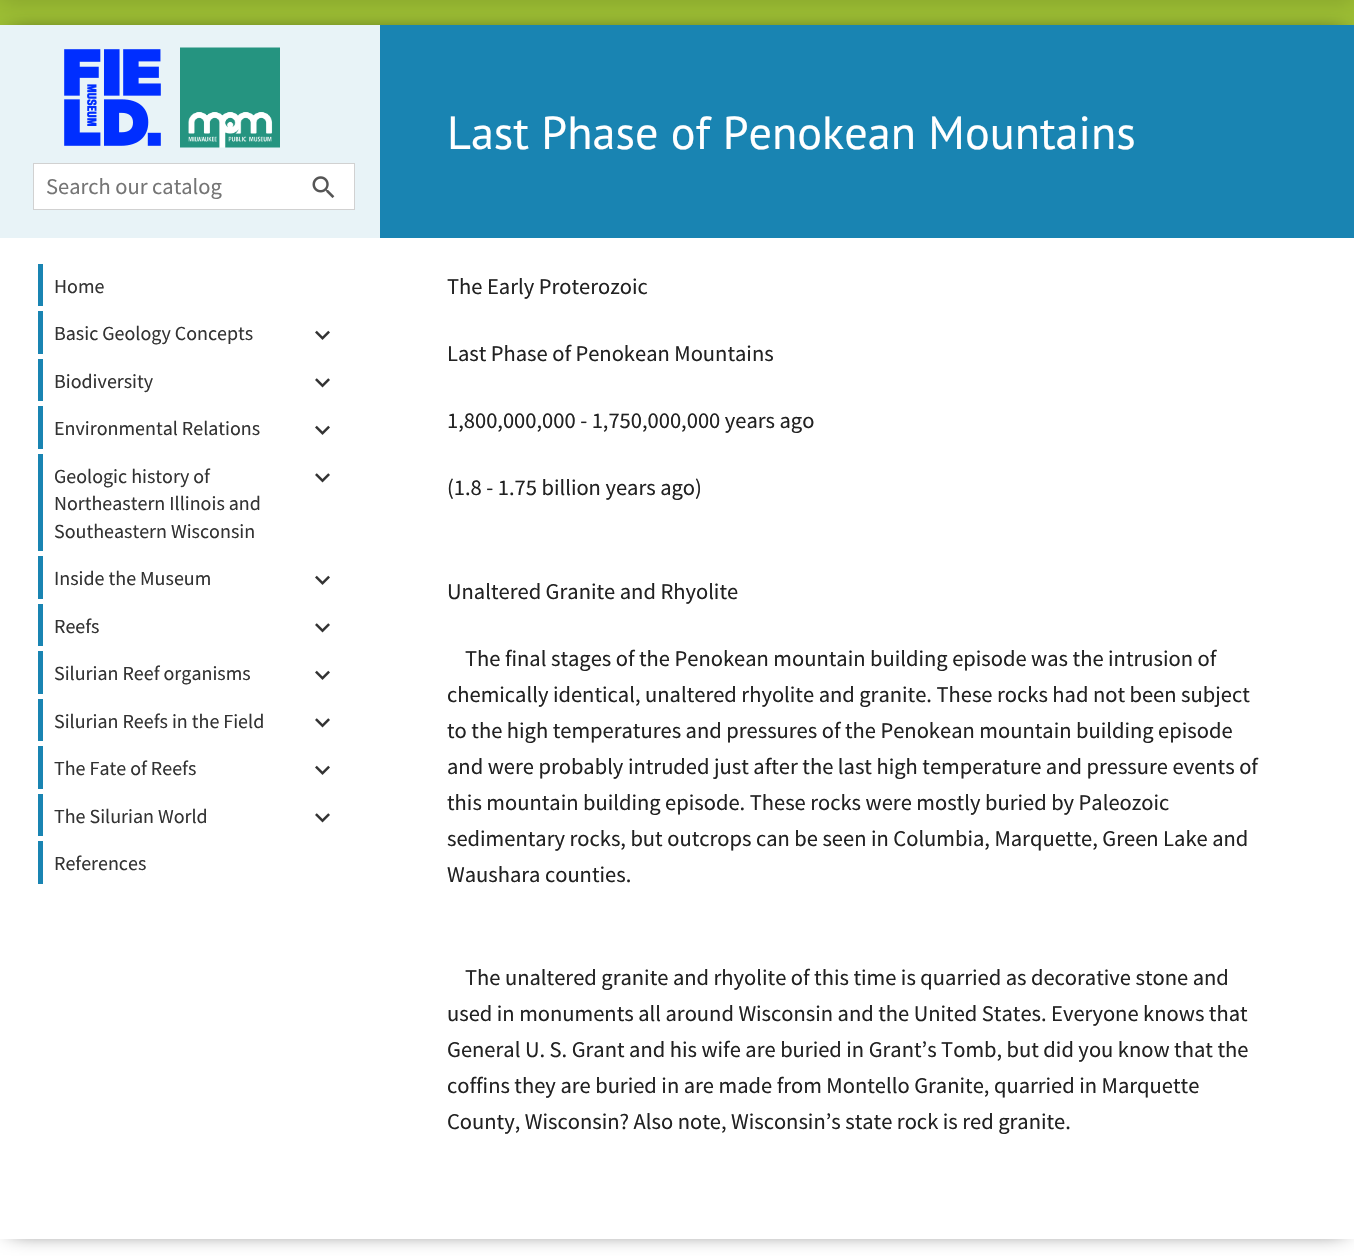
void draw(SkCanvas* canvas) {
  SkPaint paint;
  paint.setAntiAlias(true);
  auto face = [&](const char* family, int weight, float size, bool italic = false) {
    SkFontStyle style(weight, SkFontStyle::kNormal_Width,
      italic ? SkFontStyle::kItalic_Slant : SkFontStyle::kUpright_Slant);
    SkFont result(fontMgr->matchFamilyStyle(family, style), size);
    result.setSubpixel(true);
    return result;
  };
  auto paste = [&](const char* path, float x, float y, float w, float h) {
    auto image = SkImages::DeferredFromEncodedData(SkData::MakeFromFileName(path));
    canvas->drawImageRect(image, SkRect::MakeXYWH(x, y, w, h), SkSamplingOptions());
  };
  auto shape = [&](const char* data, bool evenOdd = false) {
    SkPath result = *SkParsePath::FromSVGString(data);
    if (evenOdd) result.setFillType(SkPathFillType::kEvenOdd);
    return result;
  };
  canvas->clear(0xffffffff);
  paint.setColor(0xff9dbf33);
  canvas->drawRect(SkRect::MakeXYWH(0, 0, 1354, 25), paint);
  canvas->save();
  canvas->clipPath(shape("M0 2H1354V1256H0ZM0 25H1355V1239H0Z", true), true);
  paint.setColor(0xff000000);
  paint.setMaskFilter(SkMaskFilter::MakeBlur(kNormal_SkBlurStyle, 11));
  canvas->drawRect(SkRect::MakeXYWH(11, 36, 1333, 1192), paint);
  paint.setMaskFilter(nullptr);
  canvas->restore();
  paint.setColor(0xff7c9728);
  paint.setMaskFilter(SkMaskFilter::MakeBlur(kNormal_SkBlurStyle, 12.5f));
  canvas->drawRect(SkRect::MakeXYWH(0, -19, 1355, 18), paint);
  paint.setMaskFilter(nullptr);
  paint.setColor(0xffe8f3f7);
  canvas->drawRect(SkRect::MakeXYWH(0, 25, 380, 213), paint);
  paint.setColor(0xffffffff);
  canvas->drawRect(SkRect::MakeXYWH(33.5f, 163.5f, 321, 46), paint);
  paint.setStroke(true);
  paint.setStrokeWidth(1);
  paint.setColor(0xffd1d1d1);
  canvas->drawRect(SkRect::MakeXYWH(33.5f, 163.5f, 321, 46), paint);
  paste("img/1.png", 312, 176, 23, 22);
  paint.setStroke(false);
  paint.setColor(0xff1984b2);
  canvas->drawRect(SkRect::MakeXYWH(38, 264, 5, 42), paint);
  canvas->drawRect(SkRect::MakeXYWH(38, 311, 5, 43), paint);
  paste("img/2.png", 315, 330, 15, 10);
  canvas->drawRect(SkRect::MakeXYWH(38, 359, 5, 42), paint);
  paste("img/3.png", 315, 378, 15, 10);
  canvas->drawRect(SkRect::MakeXYWH(38, 406, 5, 43), paint);
  paste("img/2.png", 315, 425, 15, 10);
  canvas->drawRect(SkRect::MakeXYWH(38, 454, 5, 97), paint);
  paste("img/3.png", 315, 473, 15, 10);
  canvas->drawRect(SkRect::MakeXYWH(38, 556, 5, 43), paint);
  paste("img/2.png", 315, 575, 15, 10);
  canvas->drawRect(SkRect::MakeXYWH(38, 604, 5, 42), paint);
  paste("img/3.png", 315, 623, 15, 10);
  canvas->drawRect(SkRect::MakeXYWH(38, 651, 5, 43), paint);
  paste("img/2.png", 315, 670, 15, 10);
  canvas->drawRect(SkRect::MakeXYWH(38, 699, 5, 42), paint);
  paste("img/3.png", 315, 718, 15, 10);
  canvas->drawRect(SkRect::MakeXYWH(38, 746, 5, 43), paint);
  paste("img/2.png", 315, 765, 15, 10);
  canvas->drawRect(SkRect::MakeXYWH(38, 794, 5, 42), paint);
  paste("img/3.png", 315, 813, 15, 10);
  canvas->drawRect(SkRect::MakeXYWH(38, 841, 5, 43), paint);
  canvas->drawRect(SkRect::MakeXYWH(380, 25, 974, 213), paint);
  paste("img/4.png", 64, 49, 97, 97);
  paste("img/5.png", 180, 47, 100, 101);
  paint.setColor(0xe6ffffff);
  canvas->drawRect(SkRect::MakeXYWH(4, 1238, 376, 1), paint);
  auto f0 = face("Source Sans Pro", 400, 22.5f);
  paint.setColor(0xff757575);
  canvas->drawString("Search our catalog", 46, 194, f0, paint);
  auto f1 = face("Source Sans Pro", 400, 20);
  paint.setColor(0xff333333);
  {
    const struct { const char* s; float x, y; } items[] = {
      {"Home", 54, 293},
      {"Basic Geology Concepts", 54, 340},
      {"Biodiversity", 54, 388},
      {"Environmental Relations", 54, 435},
      {"Geologic history of", 54, 483},
      {"Northeastern Illinois and", 54, 510},
      {"Southeastern Wisconsin", 54, 538},
      {"Inside the Museum", 54, 585},
      {"Reefs", 54, 633},
      {"Silurian Reef organisms", 54, 680},
      {"Silurian Reefs in the Field", 54, 728},
      {"The Fate of Reefs", 54, 775},
      {"The Silurian World", 54, 823},
      {"References", 54, 870},
    };
    for (auto [s, x, y] : items) {
      canvas->drawString(s, x, y, f1, paint);
    }
  }
  auto f2 = face("PT Sans", 400, 46.25f);
  paint.setColor(0xffffffff);
  canvas->drawString("Last Phase of Penokean Mountains", 447, 149, f2, paint);
  paint.setColor(0xff222222);
  {
    const struct { const char* s; float x, y; } items[] = {
      {"The Early Proterozoic", 447, 294},
      {"Last Phase of Penokean Mountains", 447, 361},
      {"1,800,000,000 - 1,750,000,000 years ago", 447, 428},
      {"(1.8 - 1.75 billion years ago)", 447, 495},
      {"Unaltered Granite and Rhyolite", 447, 599},
      {"The final stages of the Penokean mountain building episode was the intrusion of", 465, 666},
      {"chemically identical, unaltered rhyolite and granite. These rocks had not been subject", 447, 702},
      {"to the high temperatures and pressures of the Penokean mountain building episode", 447, 738},
      {"and were probably intruded just after the last high temperature and pressure events of", 447, 774},
      {"this mountain building episode. These rocks were mostly buried by Paleozoic", 447, 810},
      {"sedimentary rocks, but outcrops can be seen in Columbia, Marquette, Green Lake and", 447, 846},
      {"Waushara counties.", 447, 882},
      {"The unaltered granite and rhyolite of this time is quarried as decorative stone and", 465, 985},
      {"used in monuments all around Wisconsin and the United States. Everyone knows that", 447, 1021},
      {"General U. S. Grant and his wife are buried in Grant’s Tomb, but did you know that the", 447, 1057},
      {"coffins they are buried in are made from Montello Granite, quarried in Marquette", 447, 1093},
      {"County, Wisconsin? Also note, Wisconsin’s state rock is red granite.", 447, 1129},
    };
    for (auto [s, x, y] : items) {
      canvas->drawString(s, x, y, f0, paint);
    }
  }
}
